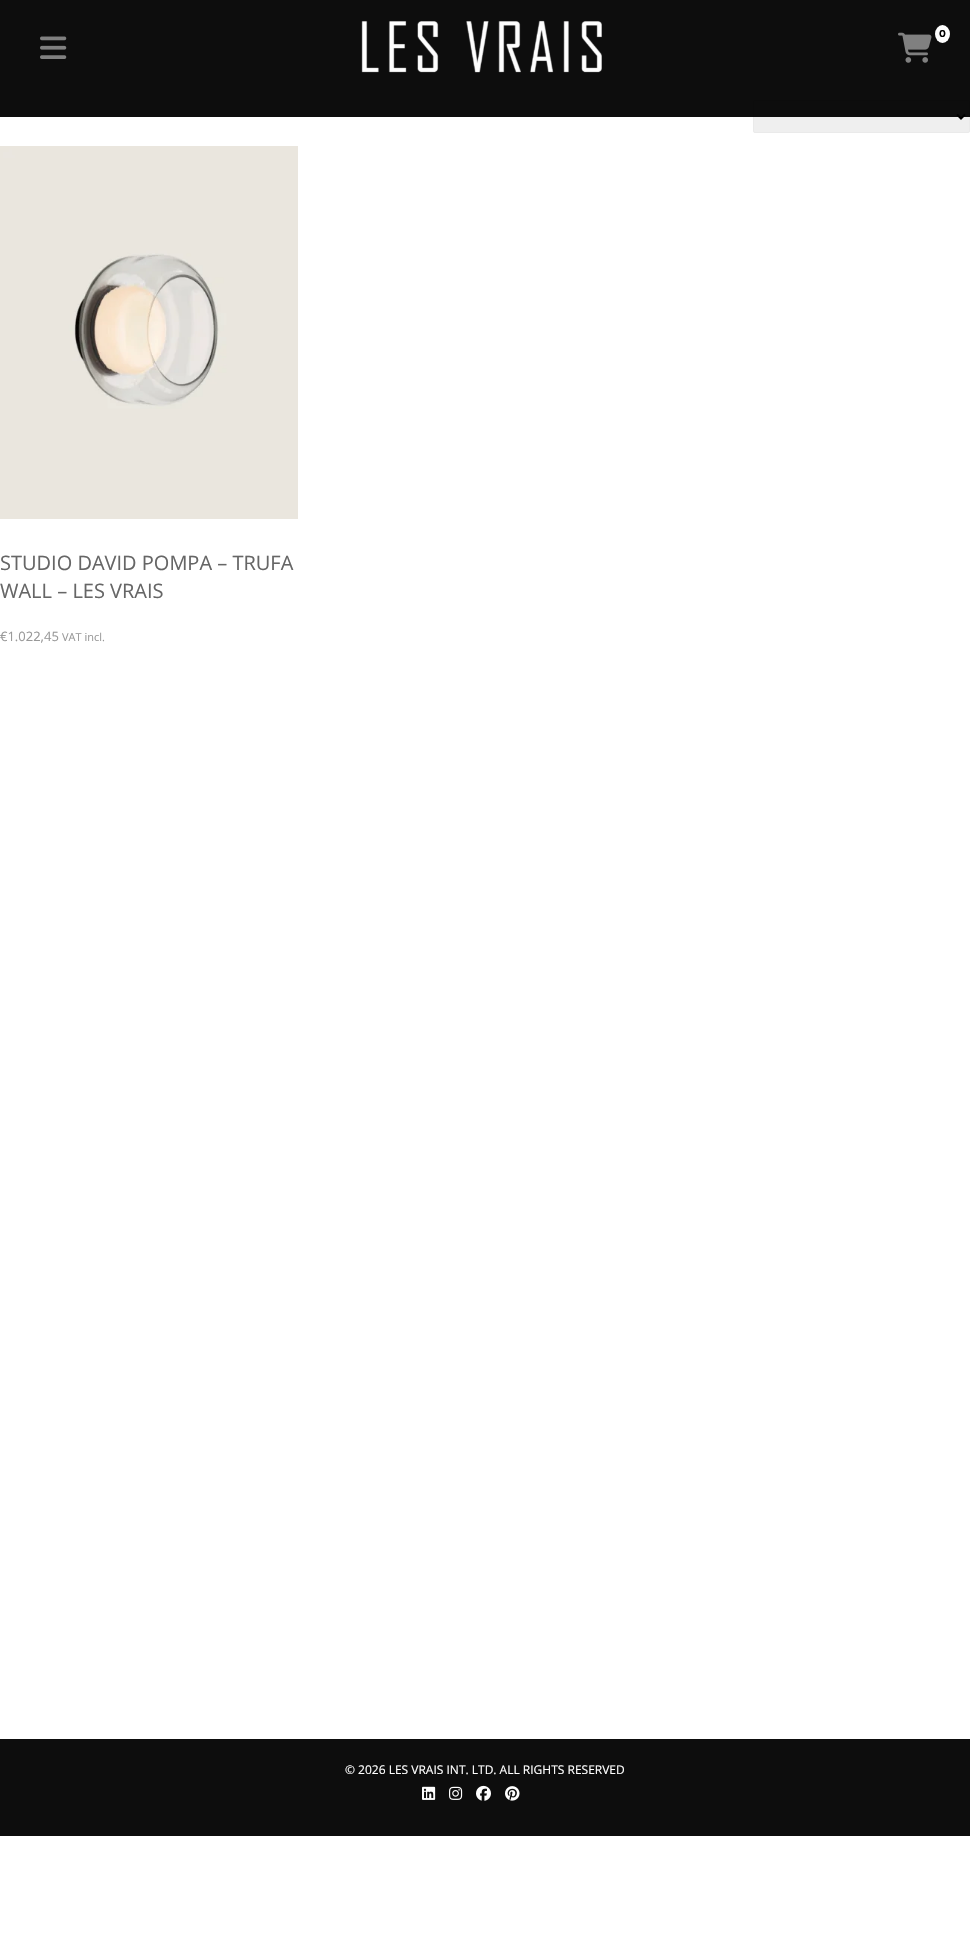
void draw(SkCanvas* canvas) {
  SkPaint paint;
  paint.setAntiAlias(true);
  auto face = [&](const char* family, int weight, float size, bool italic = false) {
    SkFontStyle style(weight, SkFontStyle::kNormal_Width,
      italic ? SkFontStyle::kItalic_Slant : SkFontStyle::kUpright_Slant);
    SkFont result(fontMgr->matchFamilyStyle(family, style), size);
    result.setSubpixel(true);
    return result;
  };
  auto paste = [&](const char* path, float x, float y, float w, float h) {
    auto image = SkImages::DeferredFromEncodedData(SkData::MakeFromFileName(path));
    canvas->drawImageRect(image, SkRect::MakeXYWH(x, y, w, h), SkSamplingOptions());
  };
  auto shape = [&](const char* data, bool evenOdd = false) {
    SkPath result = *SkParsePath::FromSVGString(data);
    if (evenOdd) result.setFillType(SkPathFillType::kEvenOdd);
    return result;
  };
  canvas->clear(0xffffffff);
  paint.setColor(0xffefefef);
  canvas->drawRoundRect(SkRect::MakeXYWH(753.5f, 100.5f, 216, 32), 1.5f, 1.5f, paint);
  paint.setStroke(true);
  paint.setStrokeWidth(1);
  paint.setColor(0xffeaeaea);
  canvas->drawRoundRect(SkRect::MakeXYWH(753.5f, 100.5f, 216, 32), 1.5f, 1.5f, paint);
  paint.setStrokeWidth(2);
  paint.setColor(0xff000000);
  canvas->drawPath(shape("M957 114.5L961 118.5L965 114.5"), paint);
  paint.setStroke(false);
  paint.setColor(0xf2000000);
  canvas->drawRect(SkRect::MakeXYWH(0, 0, 970, 117), paint);
  paste("img/1.png", 361, 20, 241, 53);
  paste("img/2.png", 898, 32, 34, 31);
  paint.setColor(0xffffffff);
  canvas->drawOval(SkRect::MakeXYWH(935, 25, 15, 18), paint);
  paste("img/3.png", 40, 36, 27, 23);
  paste("img/4.png", 0, 146, 298, 373);
  paint.setColor(0xff0d0d0d);
  canvas->drawRect(SkRect::MakeXYWH(0, 1739, 970, 97), paint);
  paste("img/5.png", 422, 1786, 14, 14);
  paste("img/6.png", 449, 1786, 14, 14);
  paste("img/7.png", 476, 1785, 15, 16);
  paste("img/8.png", 505, 1786, 15, 15);
  auto f0 = face("DM Sans", 900, 10);
  paint.setColor(0xff000000);
  canvas->drawString("0", 939, 37, f0, paint);
  auto f1 = face("Open Sans", 400, 20);
  paint.setColor(0xff666666);
  canvas->drawString("STUDIO DAVID POMPA – TRUFA", 0, 570, f1, paint);
  canvas->drawString("WALL – LES VRAIS", 0, 598, f1, paint);
  auto f2 = face("Open Sans", 400, 13);
  paint.setColor(0xff999999);
  canvas->drawString("€1.022,45", 0, 641, f2, paint);
  auto f3 = face("Open Sans", 400, 11);
  canvas->drawString("VAT incl.", 62, 641, f3, paint);
  auto f4 = face("Open Sans", 400, 12);
  paint.setColor(0xffffffff);
  canvas->drawString("© 2026 LES VRAIS INT. LTD. ALL RIGHTS RESERVED", 345, 1774, f4, paint);
}
